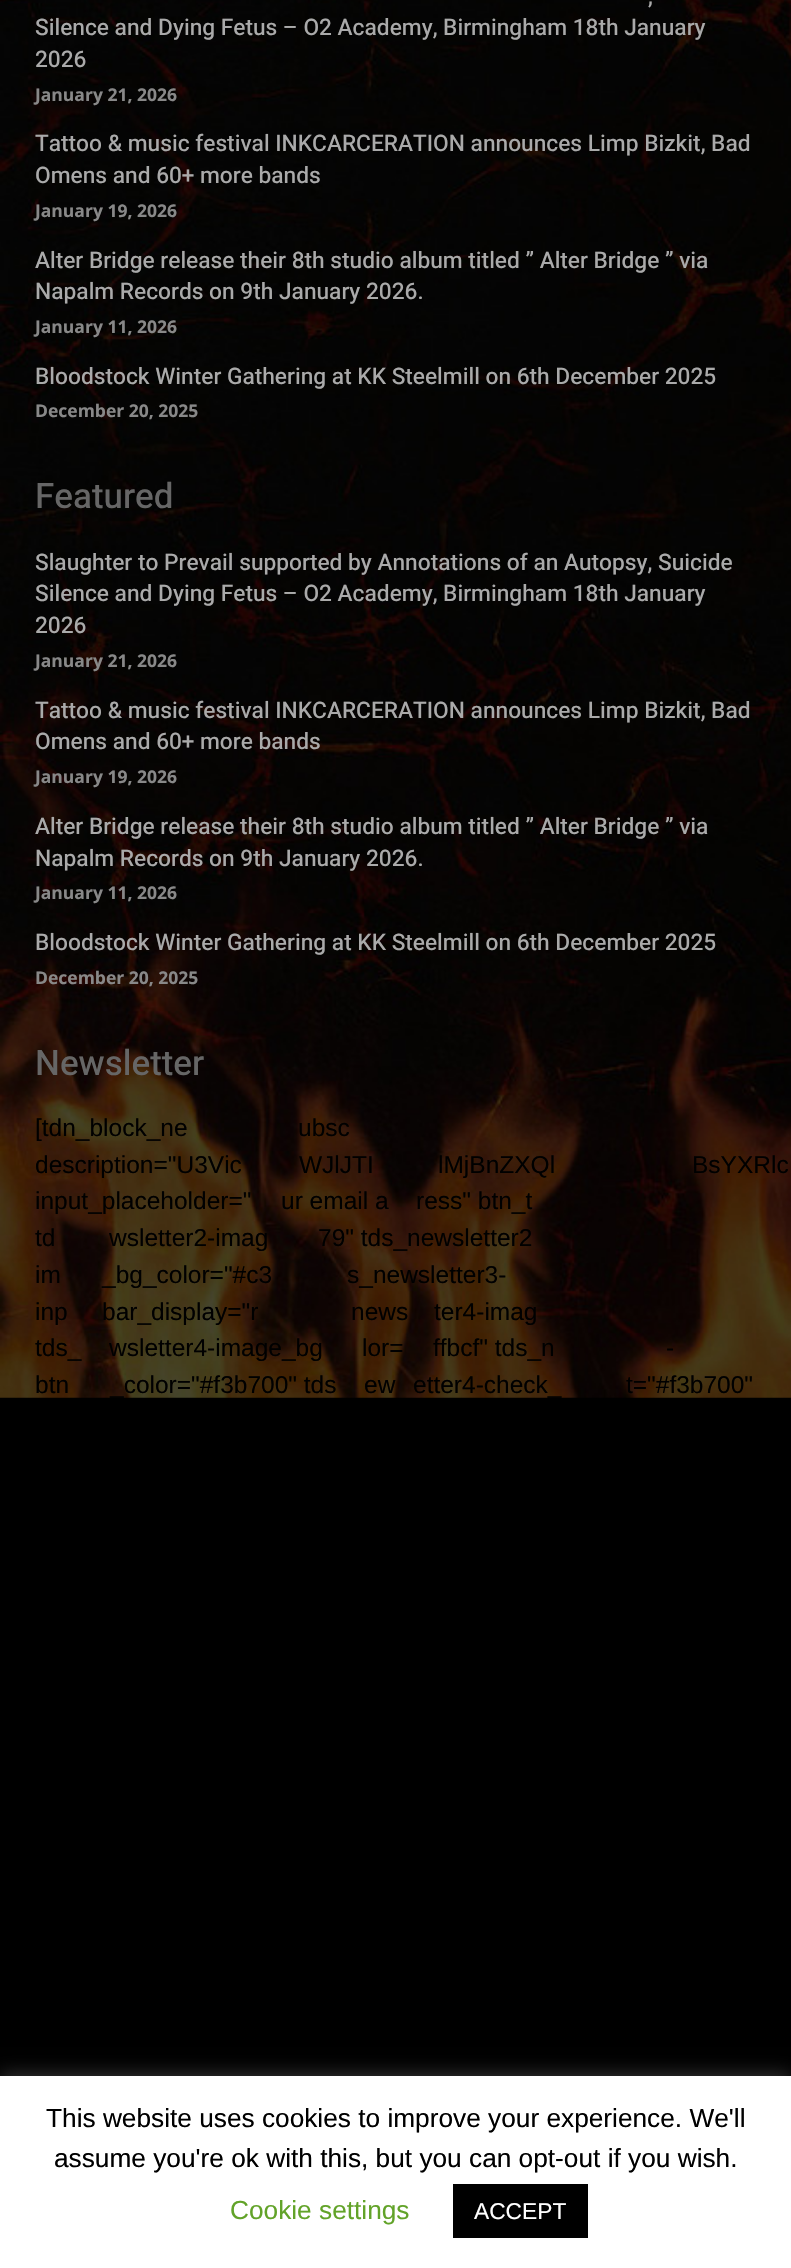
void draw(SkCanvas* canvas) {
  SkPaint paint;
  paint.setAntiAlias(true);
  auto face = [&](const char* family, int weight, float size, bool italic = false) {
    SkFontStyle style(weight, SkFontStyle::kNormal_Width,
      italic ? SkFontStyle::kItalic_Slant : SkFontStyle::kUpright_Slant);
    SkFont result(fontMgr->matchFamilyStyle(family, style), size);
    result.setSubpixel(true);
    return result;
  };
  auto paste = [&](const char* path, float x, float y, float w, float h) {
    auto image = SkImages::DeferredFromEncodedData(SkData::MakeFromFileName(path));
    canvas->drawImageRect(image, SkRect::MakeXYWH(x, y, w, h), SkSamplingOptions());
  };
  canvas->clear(0xff000000);
  paste("img/1.png", 0, 0, 791, 1398);
  paint.setColor(0x4dacabab);
  paint.setMaskFilter(SkMaskFilter::MakeBlur(kNormal_SkBlurStyle, 9));
  canvas->drawRect(SkRect::MakeXYWH(0, 2074, 791, 192), paint);
  paint.setMaskFilter(nullptr);
  paint.setColor(0xffffffff);
  canvas->drawRect(SkRect::MakeXYWH(0, 2076, 791, 192), paint);
  paint.setColor(0xff000000);
  canvas->drawRect(SkRect::MakeXYWH(453, 2184, 135, 54), paint);
  auto f0 = face("Heebo", 500, 22.75f);
  paint.setColor(0xffaaaaaa);
  {
    const struct { const char* s; float x, y; } items[] = {
      {",", 648, 4},
      {"Silence and Dying Fetus – O2 Academy, Birmingham 18th January", 35, 35},
      {"2026", 35, 67},
    };
    for (auto [s, x, y] : items) {
      canvas->drawString(s, x, y, f0, paint);
    }
  }
  auto f1 = face("Open Sans", 700, 17.5f);
  paint.setColor(0xff888888);
  canvas->drawString("January 21, 2026", 35, 101, f1, paint);
  paint.setColor(0xffaaaaaa);
  canvas->drawString("Tattoo & music festival INKCARCERATION announces Limp Bizkit, Bad", 35, 151, f0, paint);
  canvas->drawString("Omens and 60+ more bands", 35, 183, f0, paint);
  paint.setColor(0xff888888);
  canvas->drawString("January 19, 2026", 35, 217, f1, paint);
  paint.setColor(0xffaaaaaa);
  canvas->drawString("Alter Bridge release their 8th studio album titled ” Alter Bridge ” via", 35, 268, f0, paint);
  canvas->drawString("Napalm Records on 9th January 2026.", 35, 299, f0, paint);
  paint.setColor(0xff888888);
  canvas->drawString("January 11, 2026", 35, 333, f1, paint);
  paint.setColor(0xffaaaaaa);
  canvas->drawString("Bloodstock Winter Gathering at KK Steelmill on 6th December 2025", 35, 384, f0, paint);
  paint.setColor(0xff888888);
  canvas->drawString("December 20, 2025", 35, 417, f1, paint);
  auto f2 = face("Heebo", 500, 35);
  paint.setColor(0xff666666);
  canvas->drawString("Featured", 35, 508, f2, paint);
  paint.setColor(0xffaaaaaa);
  {
    const struct { const char* s; float x, y; } items[] = {
      {"Slaughter to Prevail supported by Annotations of an Autopsy, Suicide", 35, 570},
      {"Silence and Dying Fetus – O2 Academy, Birmingham 18th January", 35, 601},
      {"2026", 35, 633},
    };
    for (auto [s, x, y] : items) {
      canvas->drawString(s, x, y, f0, paint);
    }
  }
  paint.setColor(0xff888888);
  canvas->drawString("January 21, 2026", 35, 667, f1, paint);
  paint.setColor(0xffaaaaaa);
  canvas->drawString("Tattoo & music festival INKCARCERATION announces Limp Bizkit, Bad", 35, 718, f0, paint);
  canvas->drawString("Omens and 60+ more bands", 35, 749, f0, paint);
  paint.setColor(0xff888888);
  canvas->drawString("January 19, 2026", 35, 783, f1, paint);
  paint.setColor(0xffaaaaaa);
  canvas->drawString("Alter Bridge release their 8th studio album titled ” Alter Bridge ” via", 35, 834, f0, paint);
  canvas->drawString("Napalm Records on 9th January 2026.", 35, 866, f0, paint);
  paint.setColor(0xff888888);
  canvas->drawString("January 11, 2026", 35, 899, f1, paint);
  paint.setColor(0xffaaaaaa);
  canvas->drawString("Bloodstock Winter Gathering at KK Steelmill on 6th December 2025", 35, 950, f0, paint);
  paint.setColor(0xff888888);
  canvas->drawString("December 20, 2025", 35, 984, f1, paint);
  paint.setColor(0xff666666);
  canvas->drawString("Newsletter", 35, 1075, f2, paint);
  auto f3 = face("Liberation Sans", 400, 24.5f);
  paint.setColor(0xff000000);
  {
    const struct { const char* s; float x, y; } items[] = {
      {"[tdn_block_ne", 35, 1136},
      {"ubsc", 298, 1136},
      {"description=\"U3Vic", 35, 1173},
      {"WJlJTI", 299, 1173},
      {"lMjBnZXQl", 438, 1173},
      {"BsYXRlc", 692, 1173},
      {"input_placeholder=\"", 35, 1209},
      {"ur email a", 281, 1209},
      {"ress\" btn_t", 416, 1209},
      {"td", 35, 1246},
      {"wsletter2-imag", 109, 1246},
      {"79\" tds_newsletter2", 318, 1246},
      {"im", 35, 1283},
      {"_bg_color=\"#c3", 102, 1283},
      {"s_newsletter3-", 347, 1283},
      {"inp", 35, 1320},
      {"bar_display=\"r", 102, 1320},
      {"news", 351, 1320},
      {"ter4-imag", 434, 1320},
      {"tds_", 35, 1356},
      {"wsletter4-image_bg", 109, 1356},
      {"lor=", 362, 1356},
      {"ffbcf\" tds_n", 433, 1356},
      {"-", 666, 1356},
      {"btn", 35, 1393},
      {"_color=\"#f3b700\" tds", 110, 1393},
      {"ew", 364, 1393},
      {"etter4-check_", 413, 1393},
      {"t=\"#f3b700\"", 626, 1393},
    };
    for (auto [s, x, y] : items) {
      canvas->drawString(s, x, y, f3, paint);
    }
  }
  auto f4 = face("Liberation Sans", 400, 26.25f);
  canvas->drawString("This website uses cookies to improve your experience. We'll", 46, 2127, f4, paint);
  canvas->drawString("assume you're ok with this, but you can opt-out if you wish.", 54, 2167, f4, paint);
  paint.setColor(0xff62a329);
  canvas->drawString("Cookie settings", 230, 2219, f4, paint);
  auto f5 = face("Liberation Sans", 400, 22.75f);
  paint.setColor(0xffffffff);
  canvas->drawString("ACCEPT", 474, 2219, f5, paint);
}
